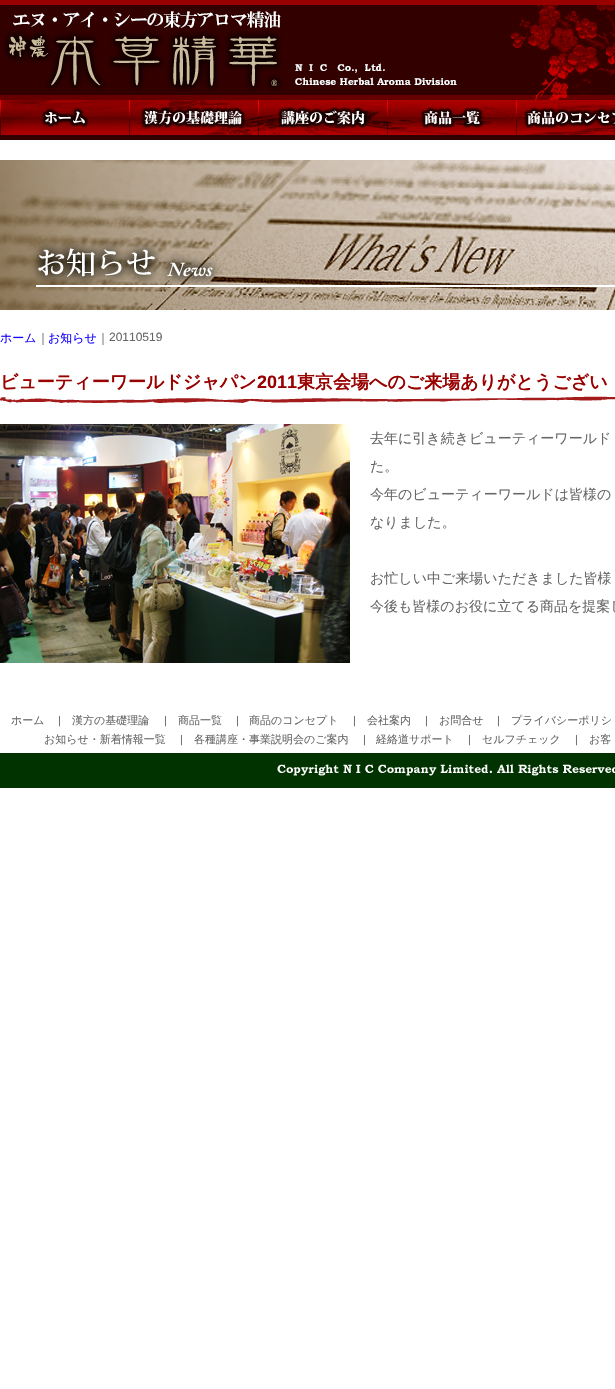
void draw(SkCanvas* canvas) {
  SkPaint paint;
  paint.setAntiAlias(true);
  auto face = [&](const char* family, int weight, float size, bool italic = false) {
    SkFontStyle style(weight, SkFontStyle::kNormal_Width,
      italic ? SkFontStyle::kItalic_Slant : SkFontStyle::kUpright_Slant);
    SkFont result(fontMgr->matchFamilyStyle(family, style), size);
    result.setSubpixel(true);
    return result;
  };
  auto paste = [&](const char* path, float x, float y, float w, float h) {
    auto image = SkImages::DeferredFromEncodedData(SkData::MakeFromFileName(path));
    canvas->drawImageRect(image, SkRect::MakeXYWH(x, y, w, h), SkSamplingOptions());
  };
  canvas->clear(0xffffffff);
  paste("img/1.png", 0, 0, 615, 140);
  paste("img/2.png", 0, 5, 615, 95);
  paste("img/3.png", 0, 100, 129, 35);
  paste("img/4.png", 129, 100, 129, 35);
  paste("img/5.png", 258, 100, 129, 35);
  paste("img/6.png", 387, 100, 129, 35);
  paste("img/7.png", 516, 100, 99, 35);
  paste("img/8.png", 0, 160, 615, 150);
  paste("img/9.png", 0, 396, 615, 7);
  paste("img/10.png", 0, 424, 350, 239);
  paint.setColor(0xff003300);
  canvas->drawRect(SkRect::MakeXYWH(0, 753, 615, 35), paint);
  paste("img/11.png", 277, 764, 338, 12);
  auto f0 = face("WenQuanYi Zen Hei", 500, 12);
  paint.setColor(0xff1100ff);
  canvas->drawString("ホーム", 0, 342, f0, paint);
  paint.setColor(0xff666666);
  canvas->drawString("｜", 37, 342, f0, paint);
  paint.setColor(0xff1100ff);
  canvas->drawString("お知らせ", 48, 342, f0, paint);
  paint.setColor(0xff666666);
  canvas->drawString("｜", 97, 342, f0, paint);
  auto f1 = face("Liberation Sans", 400, 12);
  canvas->drawString("20110519", 109, 341, f1, paint);
  auto f2 = face("WenQuanYi Zen Hei", 700, 18);
  paint.setColor(0xff990000);
  canvas->drawString("ビューティーワールドジャパン", 0, 388, f2, paint);
  auto f3 = face("Liberation Sans", 700, 18);
  canvas->drawString("2011", 257, 388, f3, paint);
  canvas->drawString("東京会場へのご来場ありがとうござい", 297, 388, f2, paint);
  auto f4 = face("WenQuanYi Zen Hei", 500, 14);
  paint.setColor(0xff666666);
  {
    const struct { const char* s; float x, y; } items[] = {
      {"去年に引き続きビューティーワールド", 370, 443},
      {"た。", 370, 471},
      {"今年のビューティーワールドは皆様の", 370, 499},
      {"なりました。", 370, 527},
      {"お忙しい中ご来場いただきました皆様", 370, 583},
      {"今後も皆様のお役に立てる商品を提案し", 370, 611},
    };
    for (auto [s, x, y] : items) {
      canvas->drawString(s, x, y, f4, paint);
    }
  }
  auto f5 = face("WenQuanYi Zen Hei", 500, 11);
  canvas->drawString("ホーム", 11, 724, f5, paint);
  auto f6 = face("Liberation Sans", 400, 11);
  canvas->drawString("|", 58, 724, f6, paint);
  canvas->drawString("漢方の基礎理論", 72, 724, f5, paint);
  canvas->drawString("|", 164, 724, f6, paint);
  canvas->drawString("商品一覧", 178, 724, f5, paint);
  canvas->drawString("|", 236, 724, f6, paint);
  canvas->drawString("商品のコンセプト", 249, 724, f5, paint);
  canvas->drawString("|", 353, 724, f6, paint);
  canvas->drawString("会社案内", 367, 724, f5, paint);
  canvas->drawString("|", 425, 724, f6, paint);
  canvas->drawString("お問合せ", 439, 724, f5, paint);
  canvas->drawString("|", 497, 724, f6, paint);
  canvas->drawString("プライバシーポリシ", 511, 724, f5, paint);
  canvas->drawString("お知らせ・新着情報一覧", 44, 743, f5, paint);
  canvas->drawString("|", 180, 743, f6, paint);
  canvas->drawString("各種講座・事業説明会のご案内", 194, 743, f5, paint);
  canvas->drawString("|", 363, 743, f6, paint);
  canvas->drawString("経絡道サポート", 376, 743, f5, paint);
  canvas->drawString("|", 468, 743, f6, paint);
  canvas->drawString("セルフチェック", 482, 743, f5, paint);
  canvas->drawString("|", 575, 743, f6, paint);
  canvas->drawString("お客", 589, 743, f5, paint);
}
